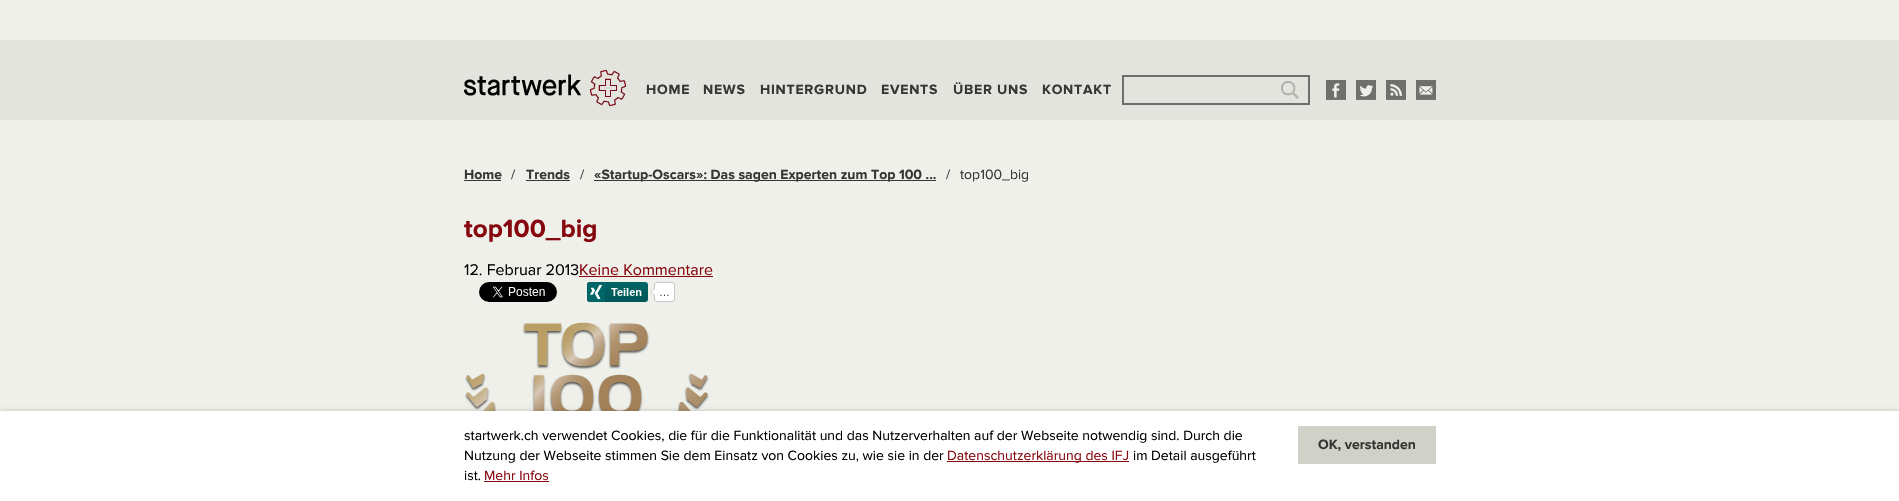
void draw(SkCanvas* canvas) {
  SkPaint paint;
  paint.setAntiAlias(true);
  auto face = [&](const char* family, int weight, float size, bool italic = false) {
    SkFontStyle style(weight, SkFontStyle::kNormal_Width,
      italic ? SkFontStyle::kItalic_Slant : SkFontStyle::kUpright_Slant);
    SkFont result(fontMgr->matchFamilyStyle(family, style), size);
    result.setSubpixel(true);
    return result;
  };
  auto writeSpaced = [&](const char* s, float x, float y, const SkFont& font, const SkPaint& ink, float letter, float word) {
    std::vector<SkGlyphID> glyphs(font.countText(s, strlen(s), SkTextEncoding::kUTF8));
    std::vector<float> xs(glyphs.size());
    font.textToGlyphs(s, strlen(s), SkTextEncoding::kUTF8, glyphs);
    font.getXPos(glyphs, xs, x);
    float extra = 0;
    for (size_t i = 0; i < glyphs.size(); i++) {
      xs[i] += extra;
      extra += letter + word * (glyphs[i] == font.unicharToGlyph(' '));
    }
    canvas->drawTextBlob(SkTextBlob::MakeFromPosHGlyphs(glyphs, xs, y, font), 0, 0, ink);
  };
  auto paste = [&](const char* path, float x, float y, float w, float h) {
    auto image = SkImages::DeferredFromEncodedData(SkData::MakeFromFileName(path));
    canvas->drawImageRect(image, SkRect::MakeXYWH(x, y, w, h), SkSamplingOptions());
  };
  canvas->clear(0xffeff0ea);
  paint.setColor(0xffe3e4dd);
  canvas->drawRect(SkRect::MakeXYWH(0, 40, 1899, 80), paint);
  paste("img/1.png", 464, 70, 162, 36);
  paint.setStroke(true);
  paint.setStrokeWidth(2);
  paint.setColor(0xff6e706b);
  canvas->drawRect(SkRect::MakeXYWH(1123, 76, 186, 28), paint);
  paste("img/2.png", 1281, 81, 18, 18);
  paste("img/3.png", 1326, 80, 20, 20);
  paste("img/4.png", 1356, 80, 20, 20);
  paste("img/5.png", 1386, 80, 20, 20);
  paste("img/6.png", 1416, 80, 20, 20);
  paint.setStroke(false);
  {
    const struct { float x, y, w, h; SkColor color; } items[] = {
      {464, 180, 37, 1, 0xff363633},
      {526, 180, 44, 1, 0xff363633},
      {594, 180, 342, 1, 0xff363633},
      {579, 276, 134, 1, 0xff86070e},
    };
    for (auto [x, y, w, h, color] : items) {
      paint.setColor(color);
      canvas->drawRect(SkRect::MakeXYWH(x, y, w, h), paint);
    }
  }
  paste("img/7.png", 479, 282, 78, 20);
  paste("img/8.png", 587, 282, 88, 20);
  paste("img/9.png", 464, 322, 245, 89);
  paint.setColor(0x33000000);
  paint.setMaskFilter(SkMaskFilter::MakeBlur(kNormal_SkBlurStyle, 2.5f));
  canvas->drawRect(SkRect::MakeXYWH(0, 411, 1899, 90), paint);
  paint.setMaskFilter(nullptr);
  {
    const struct { float x, y, w, h; SkColor color; } items[] = {
      {0, 411, 1899, 90, 0xffffffff},
      {947, 461, 182, 1, 0xff86070e},
      {484, 481, 65, 1, 0xff86070e},
      {1298, 426, 138, 38, 0xffd0d1c9},
    };
    for (auto [x, y, w, h, color] : items) {
      paint.setColor(color);
      canvas->drawRect(SkRect::MakeXYWH(x, y, w, h), paint);
    }
  }
  auto f0 = face("Proxima Nova", 700, 14);
  paint.setColor(0xff363633);
  {
    const struct { const char* s; float x, y; } items[] = {
      {"HOME", 646, 94},
      {"NEWS", 703, 94},
      {"HINTERGRUND", 760, 94},
      {"EVENTS", 881, 94},
      {"ÜBER UNS", 953, 94},
      {"KONTAKT", 1042, 94},
    };
    for (auto [s, x, y] : items) {
      writeSpaced(s, x, y, f0, paint, 0.75f, 0);
    }
  }
  canvas->drawString("Home", 464, 179, f0, paint);
  auto f1 = face("Proxima Nova", 400, 14);
  canvas->drawString("/", 511, 179, f1, paint);
  canvas->drawString("Trends", 526, 179, f0, paint);
  canvas->drawString("/", 580, 179, f1, paint);
  canvas->drawString("«Startup-Oscars»: Das sagen Experten zum Top 100 ...", 594, 179, f0, paint);
  canvas->drawString("/", 946, 179, f1, paint);
  canvas->drawString("top100_big", 960, 179, f1, paint);
  auto f2 = face("Proxima Nova", 700, 26);
  paint.setColor(0xff86070e);
  canvas->drawString("top100_big", 464, 237, f2, paint);
  auto f3 = face("Proxima Nova", 400, 16);
  paint.setColor(0xff000000);
  canvas->drawString("12. Februar 2013", 464, 275, f3, paint);
  paint.setColor(0xff86070e);
  canvas->drawString("Keine Kommentare", 579, 275, f3, paint);
  paint.setColor(0xff000000);
  canvas->drawString("startwerk.ch verwendet Cookies, die für die Funktionalität und das Nutzerverhalten auf der Webseite notwendig sind. Durch die", 464, 440, f1, paint);
  canvas->drawString("Nutzung der Webseite stimmen Sie dem Einsatz von Cookies zu, wie sie in der", 464, 460, f1, paint);
  paint.setColor(0xff86070e);
  canvas->drawString("Datenschutzerklärung des IFJ", 947, 460, f1, paint);
  paint.setColor(0xff000000);
  canvas->drawString("im Detail ausgeführt", 1133, 460, f1, paint);
  canvas->drawString("ist.", 464, 480, f1, paint);
  paint.setColor(0xff86070e);
  canvas->drawString("Mehr Infos", 484, 480, f1, paint);
  paint.setColor(0xff363633);
  canvas->drawString("OK, verstanden", 1318, 449, f0, paint);
}
